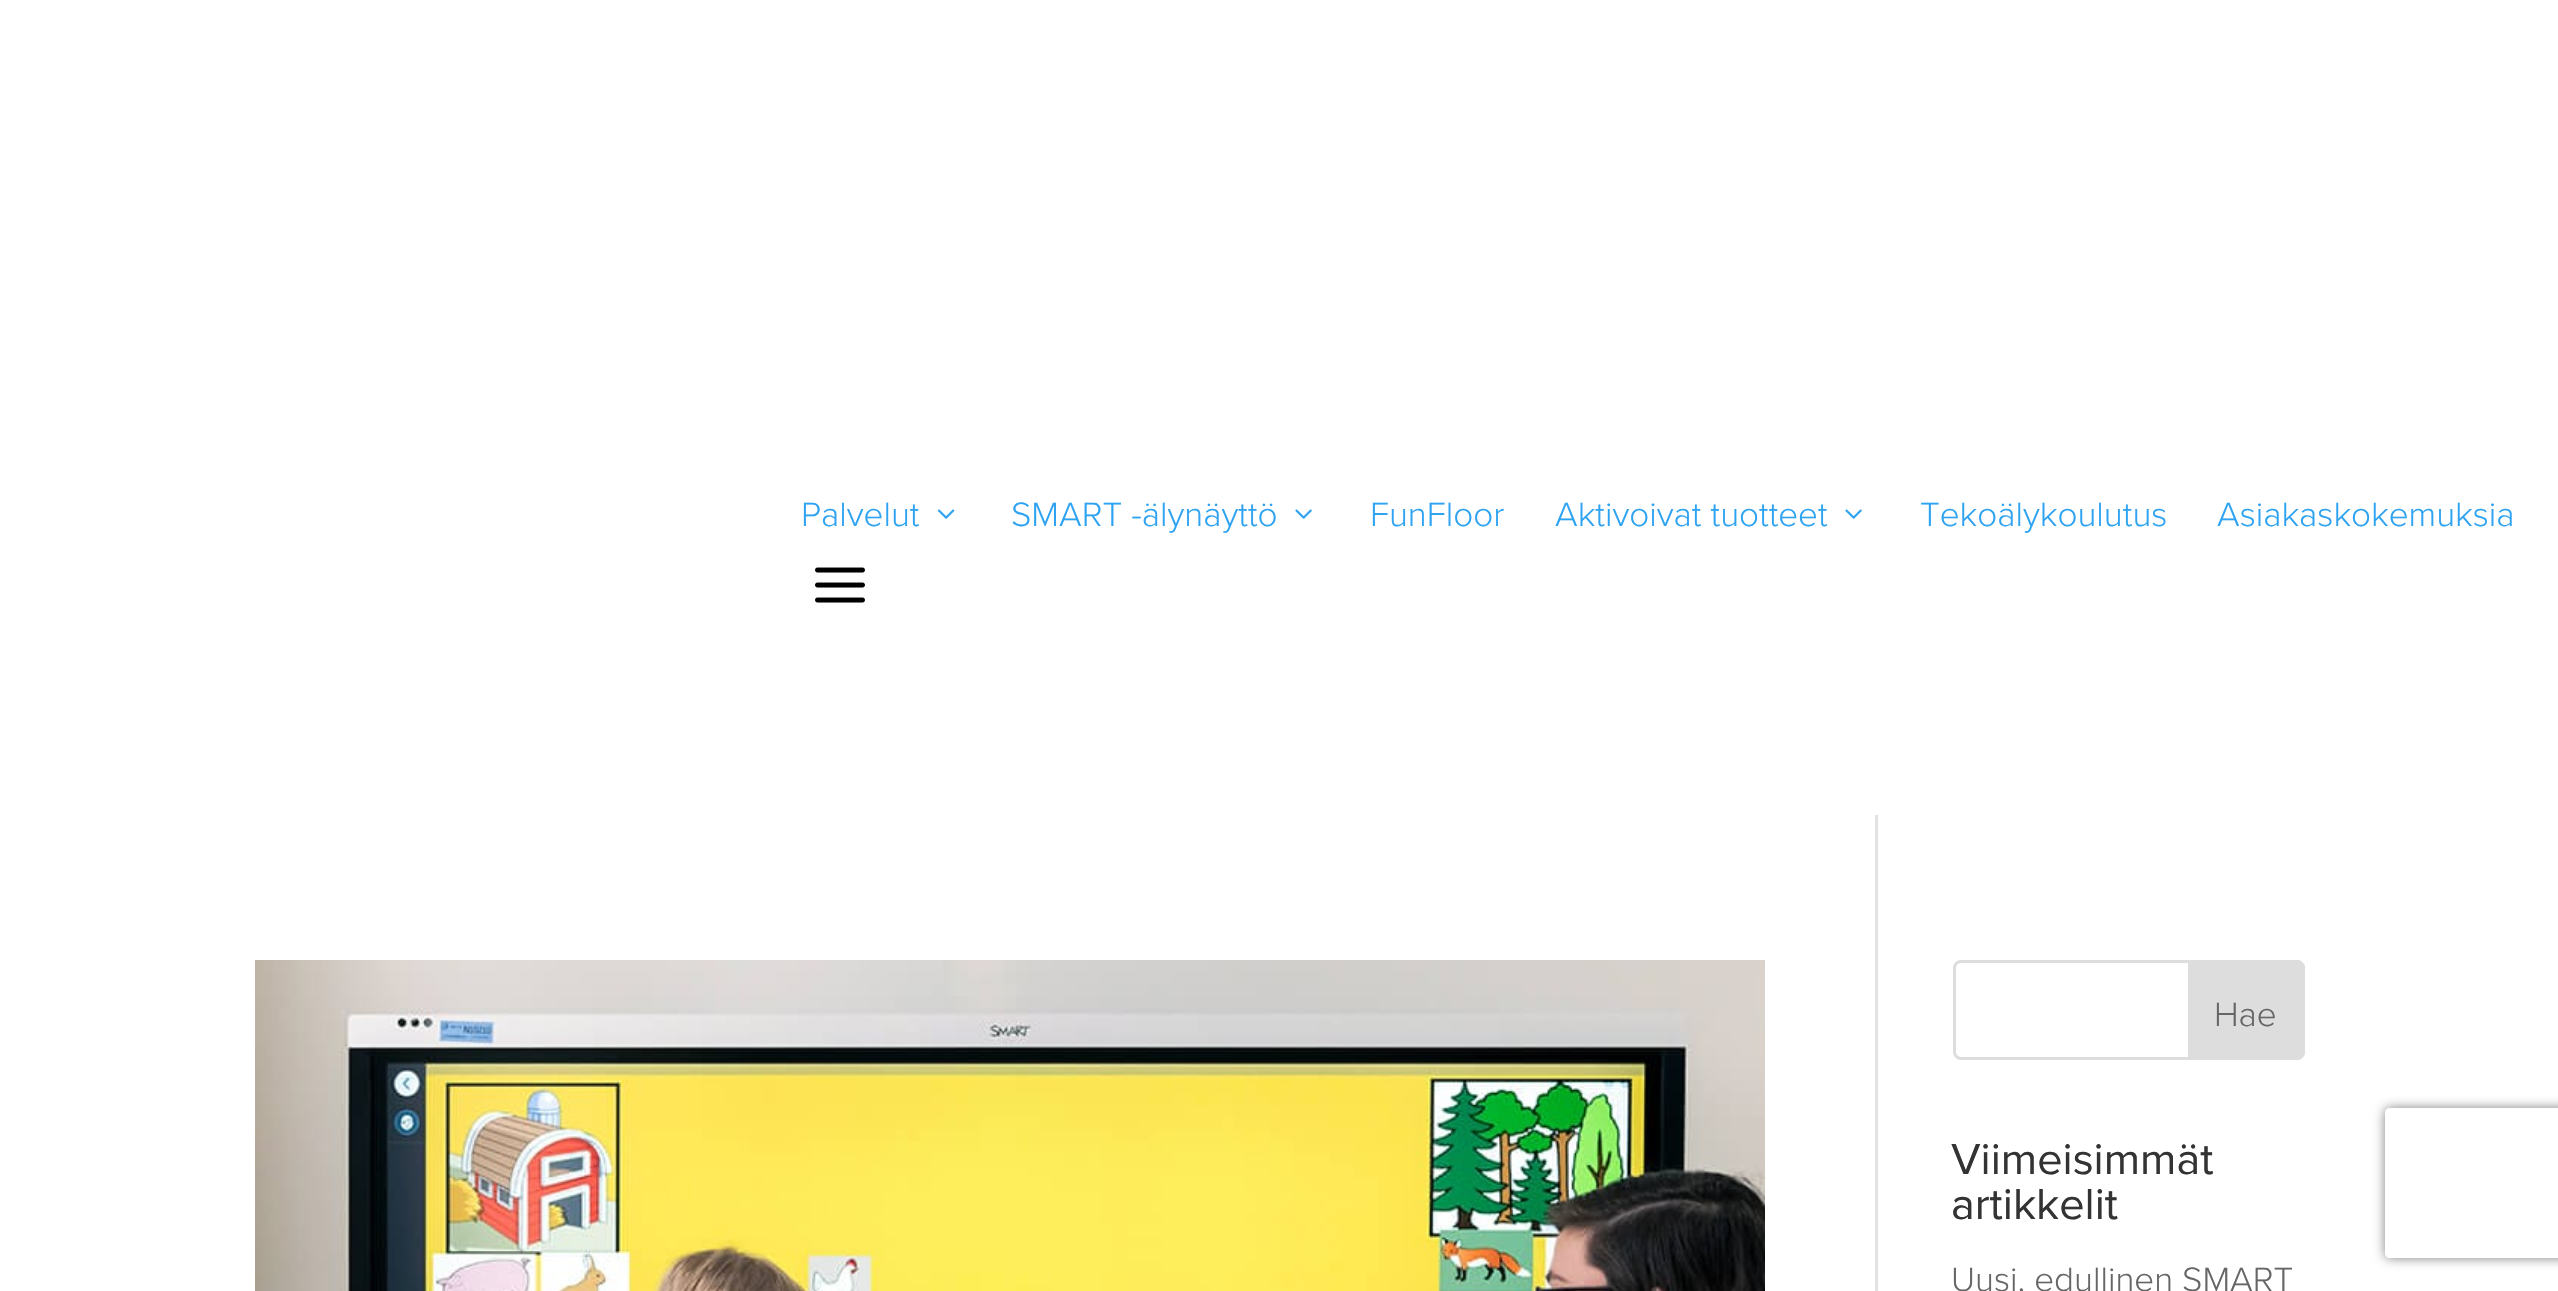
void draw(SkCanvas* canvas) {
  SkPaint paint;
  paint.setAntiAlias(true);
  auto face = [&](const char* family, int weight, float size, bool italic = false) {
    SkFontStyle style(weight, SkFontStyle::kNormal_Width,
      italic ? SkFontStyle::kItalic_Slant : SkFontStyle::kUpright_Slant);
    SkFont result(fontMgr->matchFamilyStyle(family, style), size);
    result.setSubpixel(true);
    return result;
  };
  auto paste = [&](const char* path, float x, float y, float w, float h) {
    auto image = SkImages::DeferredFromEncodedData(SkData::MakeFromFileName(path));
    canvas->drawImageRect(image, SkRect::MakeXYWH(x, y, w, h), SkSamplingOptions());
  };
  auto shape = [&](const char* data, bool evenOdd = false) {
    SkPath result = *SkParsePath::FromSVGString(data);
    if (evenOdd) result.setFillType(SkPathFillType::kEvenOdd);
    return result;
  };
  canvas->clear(0xffffffff);
  paste("img/1.png", 937, 509, 18, 10);
  paste("img/2.png", 1295, 509, 17, 10);
  paste("img/2.png", 1845, 509, 17, 10);
  paste("img/3.png", 815, 567, 50, 36);
  paint.setColor(0xffe2e2e2);
  canvas->drawRect(SkRect::MakeXYWH(1875, 815, 3, 476), paint);
  paste("img/4.png", 255, 960, 1510, 331);
  paint.setStroke(true);
  paint.setStrokeWidth(3);
  paint.setColor(0xffdddddd);
  canvas->drawRoundRect(SkRect::MakeXYWH(1954.5f, 961.5f, 349, 97), 6.5f, 6.5f, paint);
  paint.setStroke(false);
  canvas->drawPath(shape("M2189.5 961.5H2297C2300.5 961.5 2303.5 964.5 2303.5 968V1052C2303.5 1055.5 2300.5 1058.5 2297 1058.5H2189.5Z"), paint);
  paint.setStroke(true);
  canvas->drawPath(shape("M2189.5 961.5H2297C2300.5 961.5 2303.5 964.5 2303.5 968V1052C2303.5 1055.5 2300.5 1058.5 2297 1058.5H2189.5Z"), paint);
  canvas->save();
  canvas->clipPath(shape("M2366 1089H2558V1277H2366ZM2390 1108H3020C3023 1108 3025 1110 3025 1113V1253C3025 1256 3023 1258 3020 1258H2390C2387 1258 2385 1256 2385 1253V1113C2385 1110 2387 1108 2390 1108Z", true), true);
  paint.setStroke(false);
  paint.setColor(0xff808080);
  paint.setMaskFilter(SkMaskFilter::MakeBlur(kNormal_SkBlurStyle, 6));
  canvas->drawRoundRect(SkRect::MakeXYWH(2385, 1108, 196, 150), 5, 5, paint);
  paint.setMaskFilter(nullptr);
  canvas->restore();
  auto f0 = face("Proxima Nova", 300, 35);
  paint.setColor(0xff2ea3f2);
  {
    const struct { const char* s; float x, y; } items[] = {
      {"Palvelut", 801, 526},
      {"SMART -älynäyttö", 1011, 526},
      {"FunFloor", 1370, 526},
      {"Aktivoivat tuotteet", 1555, 526},
      {"Tekoälykoulutus", 1920, 526},
      {"Asiakaskokemuksia", 2217, 526},
    };
    for (auto [s, x, y] : items) {
      canvas->drawString(s, x, y, f0, paint);
    }
  }
  paint.setColor(0xff666666);
  canvas->drawString("Hae", 2214, 1026, f0, paint);
  auto f1 = face("Proxima Nova", 400, 45);
  paint.setColor(0xff333333);
  canvas->drawString("Viimeisimmät", 1951, 1174, f1, paint);
  canvas->drawString("artikkelit", 1951, 1219, f1, paint);
  paint.setColor(0xff666666);
  canvas->drawString("Uusi, edullinen SMART", 1951, 1291, f0, paint);
}
